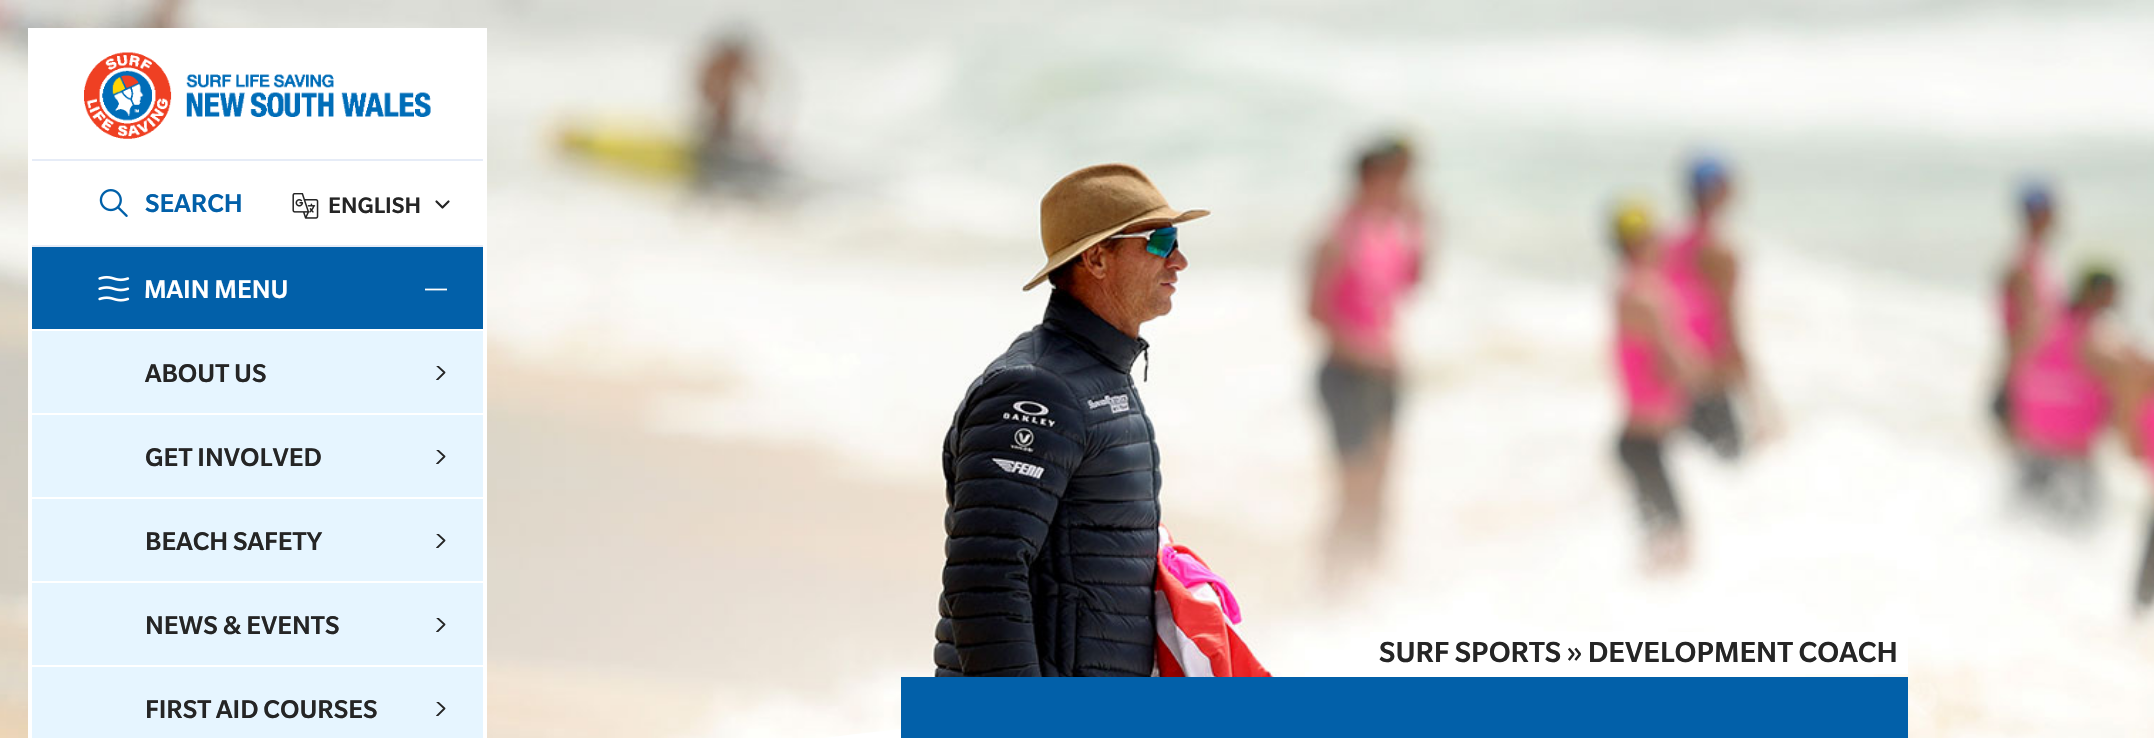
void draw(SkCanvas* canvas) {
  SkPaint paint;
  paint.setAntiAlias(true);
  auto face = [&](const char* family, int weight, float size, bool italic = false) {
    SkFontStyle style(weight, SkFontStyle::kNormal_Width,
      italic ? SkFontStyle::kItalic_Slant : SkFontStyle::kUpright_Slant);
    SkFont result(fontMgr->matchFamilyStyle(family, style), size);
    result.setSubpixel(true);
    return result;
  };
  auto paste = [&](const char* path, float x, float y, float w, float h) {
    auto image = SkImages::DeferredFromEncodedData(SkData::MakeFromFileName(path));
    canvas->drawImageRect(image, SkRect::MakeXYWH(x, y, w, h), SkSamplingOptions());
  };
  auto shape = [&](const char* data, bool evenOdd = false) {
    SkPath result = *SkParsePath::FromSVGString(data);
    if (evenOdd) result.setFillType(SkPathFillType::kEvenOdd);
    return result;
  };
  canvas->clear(0xffffffff);
  paste("img/5.png", 0, 0, 2154, 738);
  paint.setColor(0xffffffff);
  canvas->drawRect(SkRect::MakeXYWH(28, 28, 459, 710), paint);
  paste("img/1.png", 84, 52, 347, 87);
  paint.setColor(0xffe6ecf7);
  canvas->drawRect(SkRect::MakeXYWH(32, 159, 451, 2), paint);
  canvas->drawRect(SkRect::MakeXYWH(32, 245, 451, 2), paint);
  paste("img/2.png", 99, 189, 29, 28);
  paste("img/3.png", 292, 193, 27, 26);
  paint.setStroke(true);
  paint.setStrokeWidth(2.2f);
  paint.setStrokeCap(SkPaint::kRound_Cap);
  paint.setStrokeJoin(SkPaint::kRound_Join);
  paint.setColor(0xff252525);
  canvas->drawPath(shape("M448.5 201.5L442.5 207.5L436.5 201.5"), paint);
  paint.setStroke(false);
  paint.setColor(0xff0260a9);
  canvas->drawRect(SkRect::MakeXYWH(32, 247, 451, 82), paint);
  paste("img/4.png", 98, 275, 32, 27);
  paint.setStroke(true);
  paint.setStrokeWidth(1.8f);
  paint.setStrokeCap(SkPaint::kButt_Cap);
  paint.setStrokeJoin(SkPaint::kMiter_Join);
  paint.setColor(0xffffffff);
  canvas->drawPath(shape("M447 289.5H425"), paint);
  paint.setStroke(false);
  paint.setColor(0xffe6f5ff);
  canvas->drawRect(SkRect::MakeXYWH(32, 331, 451, 407), paint);
  paint.setColor(0xffffffff);
  canvas->drawRect(SkRect::MakeXYWH(32, 413, 451, 2), paint);
  canvas->save();
  canvas->clipRect(SkRect::MakeXYWH(436, 366, 10, 14));
  paint.setStroke(true);
  paint.setStrokeCap(SkPaint::kRound_Cap);
  paint.setStrokeJoin(SkPaint::kRound_Join);
  paint.setColor(0xff252525);
  canvas->drawPath(shape("M437 365.5L444.5 372.5L437 380"), paint);
  canvas->restore();
  paint.setStroke(false);
  paint.setColor(0xffffffff);
  canvas->drawRect(SkRect::MakeXYWH(32, 497, 451, 2), paint);
  canvas->save();
  canvas->clipRect(SkRect::MakeXYWH(436, 450, 10, 14));
  paint.setStroke(true);
  paint.setColor(0xff252525);
  canvas->drawPath(shape("M437 449.5L444.5 456.5L437 464"), paint);
  canvas->restore();
  paint.setStroke(false);
  paint.setColor(0xffffffff);
  canvas->drawRect(SkRect::MakeXYWH(32, 581, 451, 2), paint);
  canvas->save();
  canvas->clipRect(SkRect::MakeXYWH(436, 534, 10, 14));
  paint.setStroke(true);
  paint.setColor(0xff252525);
  canvas->drawPath(shape("M437 533.5L444.5 540.5L437 548"), paint);
  canvas->restore();
  paint.setStroke(false);
  paint.setColor(0xffffffff);
  canvas->drawRect(SkRect::MakeXYWH(32, 665, 451, 2), paint);
  canvas->save();
  canvas->clipRect(SkRect::MakeXYWH(436, 618, 10, 14));
  paint.setStroke(true);
  paint.setColor(0xff252525);
  canvas->drawPath(shape("M437 617.5L444.5 624.5L437 632"), paint);
  canvas->restore();
  canvas->save();
  canvas->clipRect(SkRect::MakeXYWH(436, 702, 10, 14));
  canvas->drawPath(shape("M437 701.5L444.5 708.5L437 716"), paint);
  canvas->restore();
  paint.setStroke(false);
  paint.setColor(0xffffffff);
  canvas->drawPath(shape("M-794 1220H2154V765C1977 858 1680 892 1763 713C1847 533-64 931-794 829Z", true), paint);
  canvas->drawRect(SkRect::MakeXYWH(1370, 632, 538, 42), paint);
  paint.setColor(0xff0260a9);
  canvas->drawPath(shape("M901 677V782H915V677H1894Z"), paint);
  canvas->drawRect(SkRect::MakeXYWH(915, 677, 993, 61), paint);
  auto f0 = face("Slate", 500, 28);
  canvas->drawString("SEARCH", 145, 212, f0, paint);
  auto f1 = face("Slate", 500, 24.5f);
  paint.setColor(0xff252525);
  canvas->drawString("ENGLISH", 328, 213, f1, paint);
  paint.setColor(0xffffffff);
  canvas->drawString("MAIN MENU", 144, 298, f0, paint);
  paint.setColor(0xff252525);
  {
    const struct { const char* s; float x, y; } items[] = {
      {"ABOUT US", 145, 382},
      {"GET INVOLVED", 145, 466},
      {"BEACH SAFETY", 145, 550},
      {"NEWS & EVENTS", 145, 634},
      {"FIRST AID COURSES", 145, 718},
    };
    for (auto [s, x, y] : items) {
      canvas->drawString(s, x, y, f0, paint);
    }
  }
  auto f2 = face("Slate", 500, 31.5f);
  canvas->drawString("SURF SPORTS » DEVELOPMENT COACH", 1379, 662, f2, paint);
}
